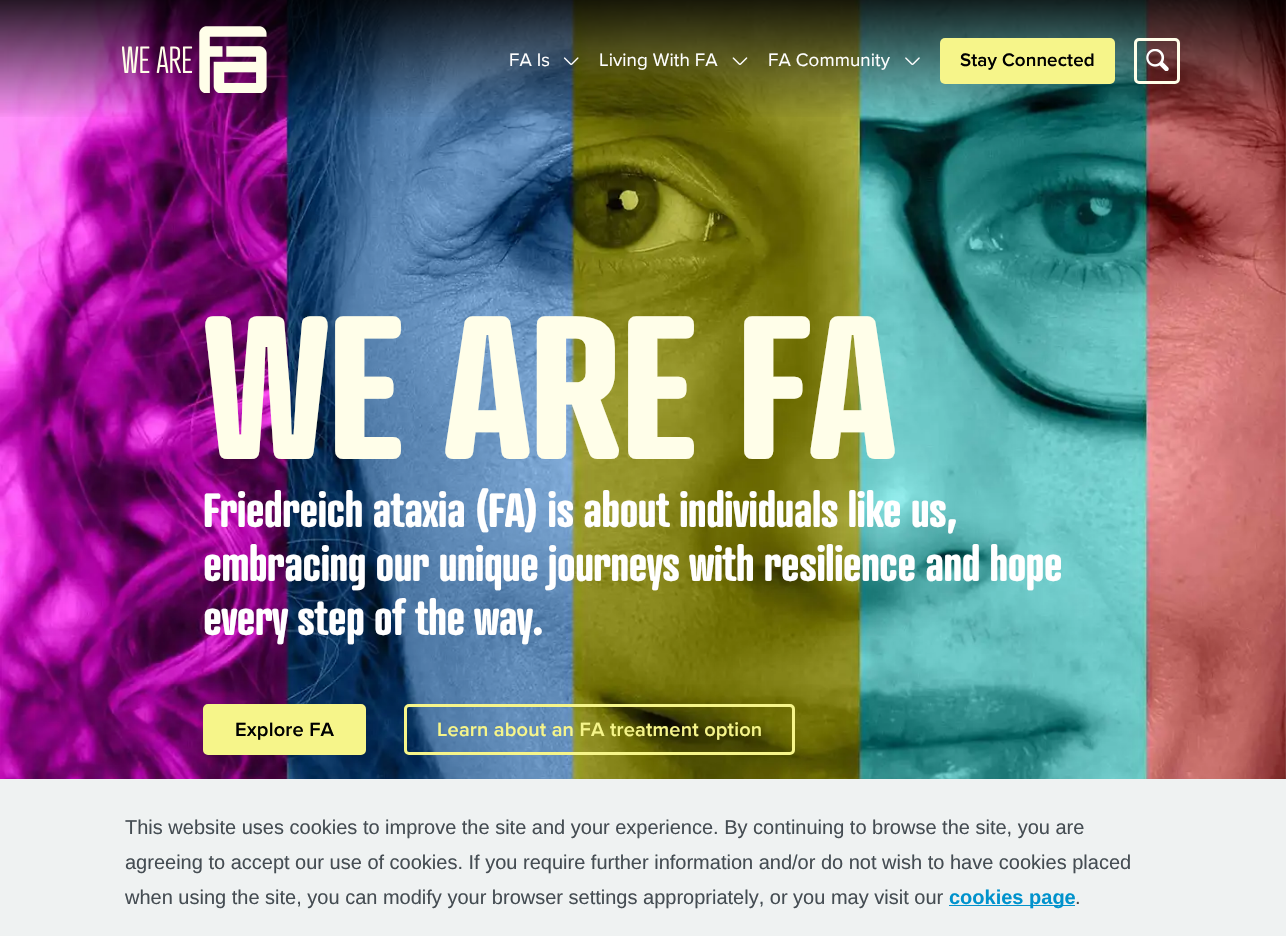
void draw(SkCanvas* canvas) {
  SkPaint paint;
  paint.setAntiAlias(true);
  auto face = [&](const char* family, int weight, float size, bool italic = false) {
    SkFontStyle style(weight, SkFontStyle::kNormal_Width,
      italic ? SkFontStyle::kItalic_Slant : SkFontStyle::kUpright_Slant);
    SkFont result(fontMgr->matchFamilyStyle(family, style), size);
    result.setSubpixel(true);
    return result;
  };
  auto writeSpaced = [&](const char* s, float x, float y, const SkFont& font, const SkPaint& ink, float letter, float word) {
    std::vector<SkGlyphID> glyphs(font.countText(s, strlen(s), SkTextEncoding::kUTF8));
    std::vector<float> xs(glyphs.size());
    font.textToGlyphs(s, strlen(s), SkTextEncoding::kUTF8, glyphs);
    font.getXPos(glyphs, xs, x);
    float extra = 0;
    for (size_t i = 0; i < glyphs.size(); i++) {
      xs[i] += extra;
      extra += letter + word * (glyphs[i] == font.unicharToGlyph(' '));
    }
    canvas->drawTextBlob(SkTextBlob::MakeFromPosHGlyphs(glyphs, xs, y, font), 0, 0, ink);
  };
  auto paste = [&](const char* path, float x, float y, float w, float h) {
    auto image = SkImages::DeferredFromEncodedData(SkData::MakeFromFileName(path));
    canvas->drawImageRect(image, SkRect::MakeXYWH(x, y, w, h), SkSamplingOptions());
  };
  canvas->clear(0xffffffff);
  paste("img/6.png", 0, 0, 1286, 779);
  {
    const SkColor colors[] = {0xd9000000, 0x00000000};
    const float stops[] = {0, 1};
    const SkPoint ends[] = {{643, 0}, {643, 120}};
    paint.setShader(SkGradientShader::MakeLinear(ends, colors, stops, 2, SkTileMode::kClamp));
    paint.setAlpha(255);
  }
  canvas->drawRect(SkRect::MakeXYWH(0, 0, 1286, 117), paint);
  paste("img/1.png", 122, 26, 145, 67);
  paste("img/2.png", 563, 57, 16, 8);
  paste("img/3.png", 732, 57, 16, 8);
  paste("img/4.png", 905, 57, 15, 8);
  paint.setShader(nullptr);
  paint.setColor(0xfff6f58a);
  canvas->drawRoundRect(SkRect::MakeXYWH(940, 38, 175, 46), 5, 5, paint);
  paint.setStroke(true);
  paint.setStrokeWidth(3);
  paint.setColor(0xfffffee9);
  canvas->drawRoundRect(SkRect::MakeXYWH(1135.5f, 39.5f, 43, 43), 3.5f, 3.5f, paint);
  paste("img/5.png", 1146, 49, 23, 22);
  paint.setStroke(false);
  paint.setColor(0xfff6f58a);
  canvas->drawRoundRect(SkRect::MakeXYWH(204.5f, 705.5f, 160, 48), 3.5f, 3.5f, paint);
  paint.setStroke(true);
  canvas->drawRoundRect(SkRect::MakeXYWH(204.5f, 705.5f, 160, 48), 3.5f, 3.5f, paint);
  canvas->drawRoundRect(SkRect::MakeXYWH(405.5f, 705.5f, 388, 48), 3.5f, 3.5f, paint);
  paint.setStroke(false);
  paint.setColor(0xffeff2f2);
  canvas->drawRect(SkRect::MakeXYWH(0, 779, 1286, 157), paint);
  paint.setColor(0xff0092cc);
  canvas->drawRect(SkRect::MakeXYWH(949, 905, 126, 1), paint);
  auto f0 = face("Proxima Nova", 400, 18.75f);
  paint.setColor(0xffffffff);
  {
    const struct { const char* s; float x, y; } items[] = {
      {"FA Is", 509, 66},
      {"Living With FA", 599, 66},
      {"FA Community", 768, 66},
    };
    for (auto [s, x, y] : items) {
      writeSpaced(s, x, y, f0, paint, 0.1f, 0);
    }
  }
  auto f1 = face("Proxima Nova", 600, 18.75f);
  paint.setColor(0xff000000);
  writeSpaced("Stay Connected", 960, 66, f1, paint, 0.1f, 0);
  auto f2 = face("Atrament", 700, 197);
  paint.setColor(0xfffffee9);
  writeSpaced("WE ARE FA", 203, 459, f2, paint, -2.5f, 0);
  auto f3 = face("Atrament", 700, 46.1f);
  paint.setColor(0xffffffff);
  {
    const struct { const char* s; float x, y; } items[] = {
      {"Friedreich ataxia (FA) is about individuals like us,", 203, 527},
      {"embracing our unique journeys with resilience and hope", 203, 581},
      {"every step of the way.", 203, 635},
    };
    for (auto [s, x, y] : items) {
      writeSpaced(s, x, y, f3, paint, -0.92f, 0);
    }
  }
  auto f4 = face("Proxima Nova", 600, 20);
  paint.setColor(0xff000000);
  writeSpaced("Explore FA", 235, 736, f4, paint, 0.2f, 0);
  paint.setColor(0xfff6f58a);
  writeSpaced("Learn about an FA treatment option", 437, 736, f4, paint, 0.2f, 0);
  auto f5 = face("Liberation Sans", 400, 20);
  paint.setColor(0xff454d53);
  {
    const struct { const char* s; float x, y; } items[] = {
      {"This website uses cookies to improve the site and your experience. By continuing to browse the site, you are", 125, 834},
      {"agreeing to accept our use of cookies. If you require further information and/or do not wish to have cookies placed", 125, 869},
      {"when using the site, you can modify your browser settings appropriately, or you may visit our", 125, 904},
    };
    for (auto [s, x, y] : items) {
      canvas->drawString(s, x, y, f5, paint);
    }
  }
  auto f6 = face("Liberation Sans", 700, 20);
  paint.setColor(0xff0092cc);
  canvas->drawString("cookies page", 949, 904, f6, paint);
  paint.setColor(0xff454d53);
  canvas->drawString(".", 1075, 904, f5, paint);
}
